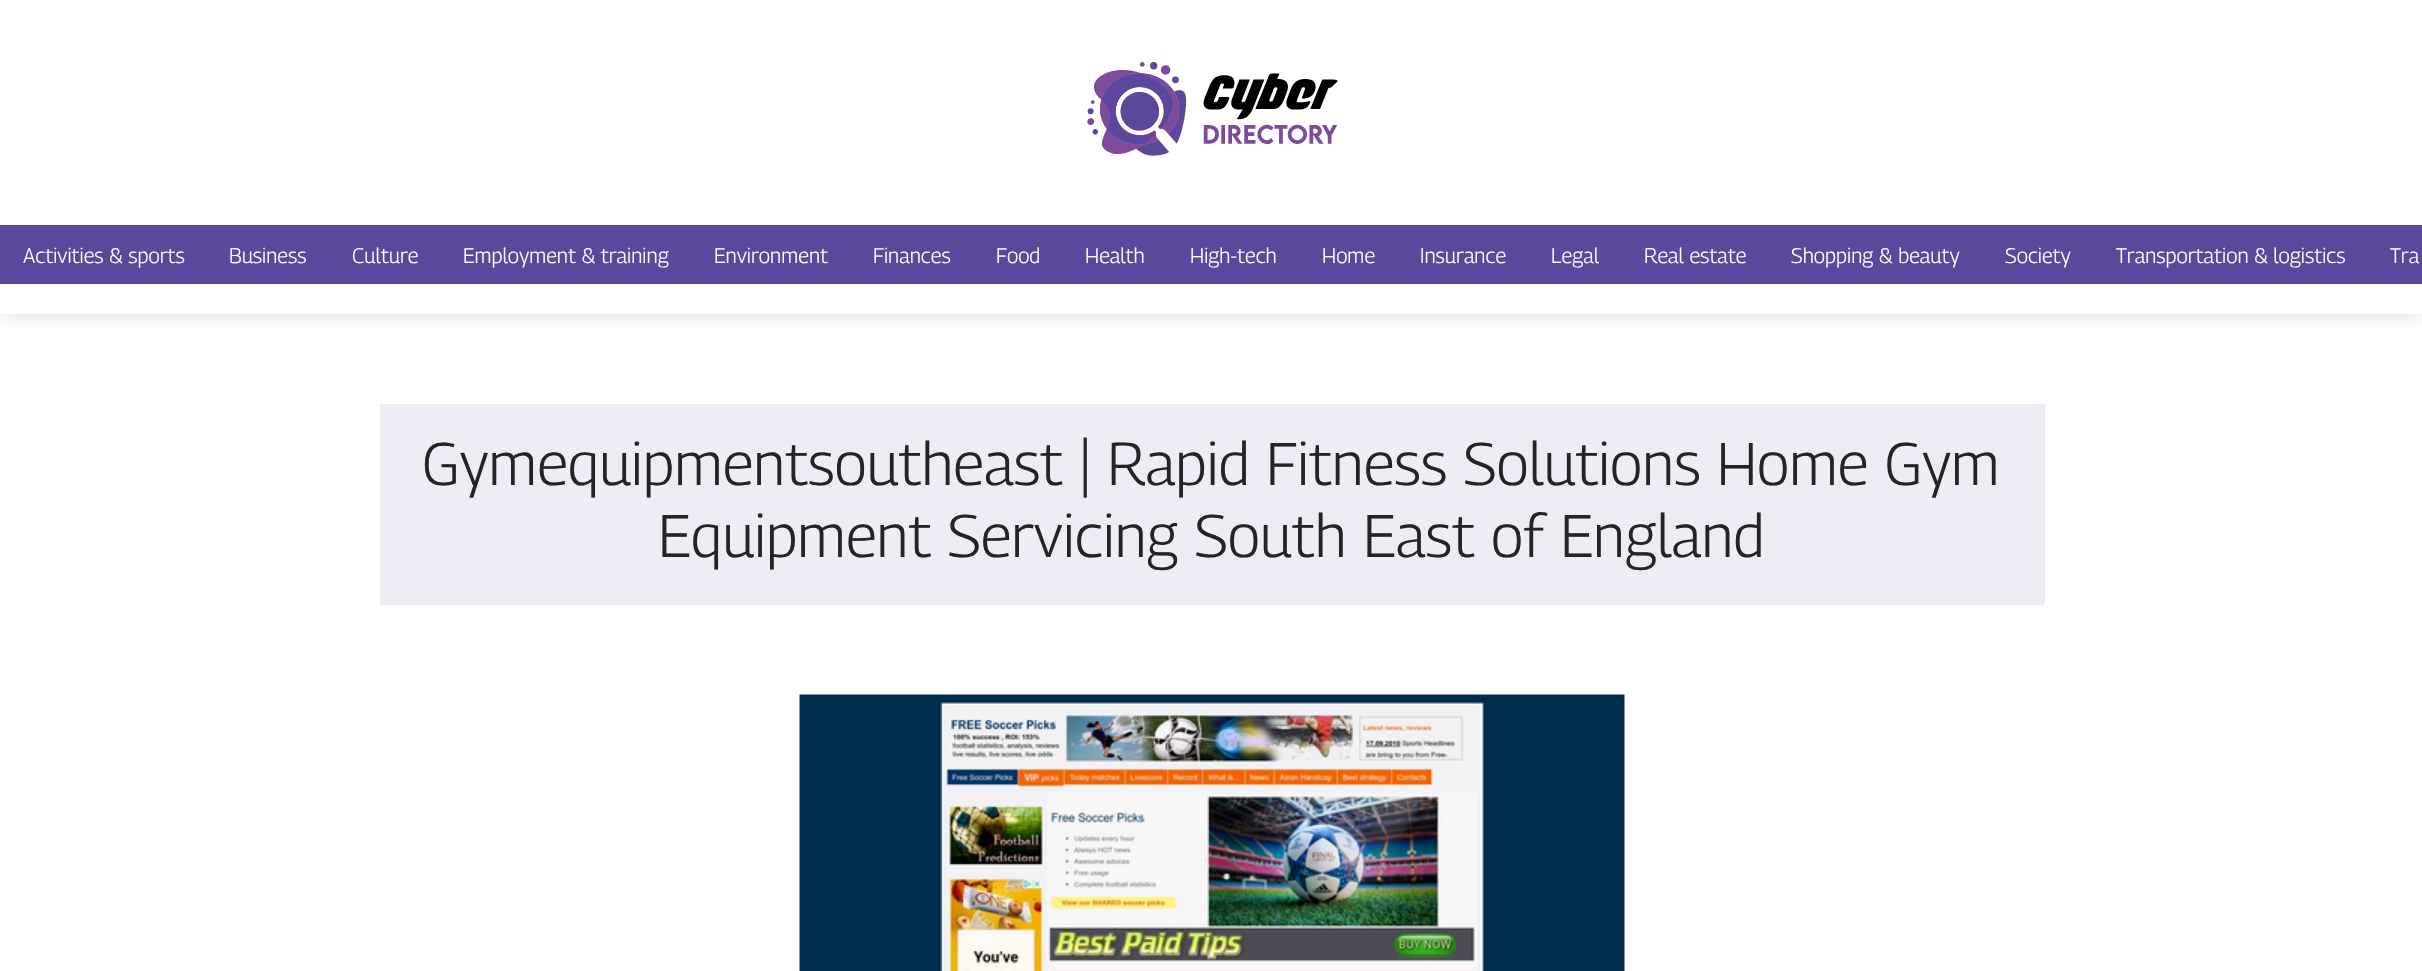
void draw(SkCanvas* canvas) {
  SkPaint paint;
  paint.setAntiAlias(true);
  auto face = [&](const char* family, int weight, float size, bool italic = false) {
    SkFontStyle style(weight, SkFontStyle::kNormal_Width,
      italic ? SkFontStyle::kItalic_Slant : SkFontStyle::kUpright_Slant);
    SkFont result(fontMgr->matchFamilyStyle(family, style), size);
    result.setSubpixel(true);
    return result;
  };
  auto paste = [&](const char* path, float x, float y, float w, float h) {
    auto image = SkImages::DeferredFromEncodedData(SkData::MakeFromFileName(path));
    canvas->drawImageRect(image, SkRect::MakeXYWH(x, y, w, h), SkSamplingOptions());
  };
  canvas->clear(0xffffffff);
  paint.setColor(0x1a000000);
  paint.setMaskFilter(SkMaskFilter::MakeBlur(kNormal_SkBlurStyle, 10));
  canvas->drawRect(SkRect::MakeXYWH(0, 3, 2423, 314), paint);
  paint.setMaskFilter(nullptr);
  paint.setColor(0xffffffff);
  canvas->drawRect(SkRect::MakeXYWH(0, 0, 2422, 314), paint);
  paste("img/1.png", 1087, 62, 251, 94);
  paint.setColor(0xff5b489c);
  canvas->drawRect(SkRect::MakeXYWH(0, 225, 2422, 59), paint);
  paint.setColor(0xffeeecf5);
  canvas->drawRect(SkRect::MakeXYWH(380, 404, 1665, 201), paint);
  paste("img/2.png", 799, 694, 826, 277);
  auto f0 = face("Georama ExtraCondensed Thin", 100, 21);
  paint.setColor(0xffffffff);
  {
    const struct { const char* s; float x, y; } items[] = {
      {"Activities & sports", 23, 263},
      {"Business", 229, 263},
      {"Culture", 352, 263},
      {"Employment & training", 463, 263},
      {"Environment", 714, 263},
      {"Finances", 873, 263},
      {"Food", 996, 263},
      {"Health", 1085, 263},
      {"High-tech", 1190, 263},
      {"Home", 1322, 263},
      {"Insurance", 1420, 263},
      {"Legal", 1551, 263},
      {"Real estate", 1644, 263},
      {"Shopping & beauty", 1791, 263},
      {"Society", 2005, 263},
      {"Transportation & logistics", 2116, 263},
      {"Tra", 2390, 263},
    };
    for (auto [s, x, y] : items) {
      canvas->drawString(s, x, y, f0, paint);
    }
  }
  auto f1 = face("Georama ExtraCondensed Thin", 100, 60);
  paint.setColor(0xff212529);
  canvas->drawString("Gymequipmentsoutheast | Rapid Fitness Solutions Home Gym", 422, 485, f1, paint);
  canvas->drawString("Equipment Servicing South East of England", 658, 557, f1, paint);
}
